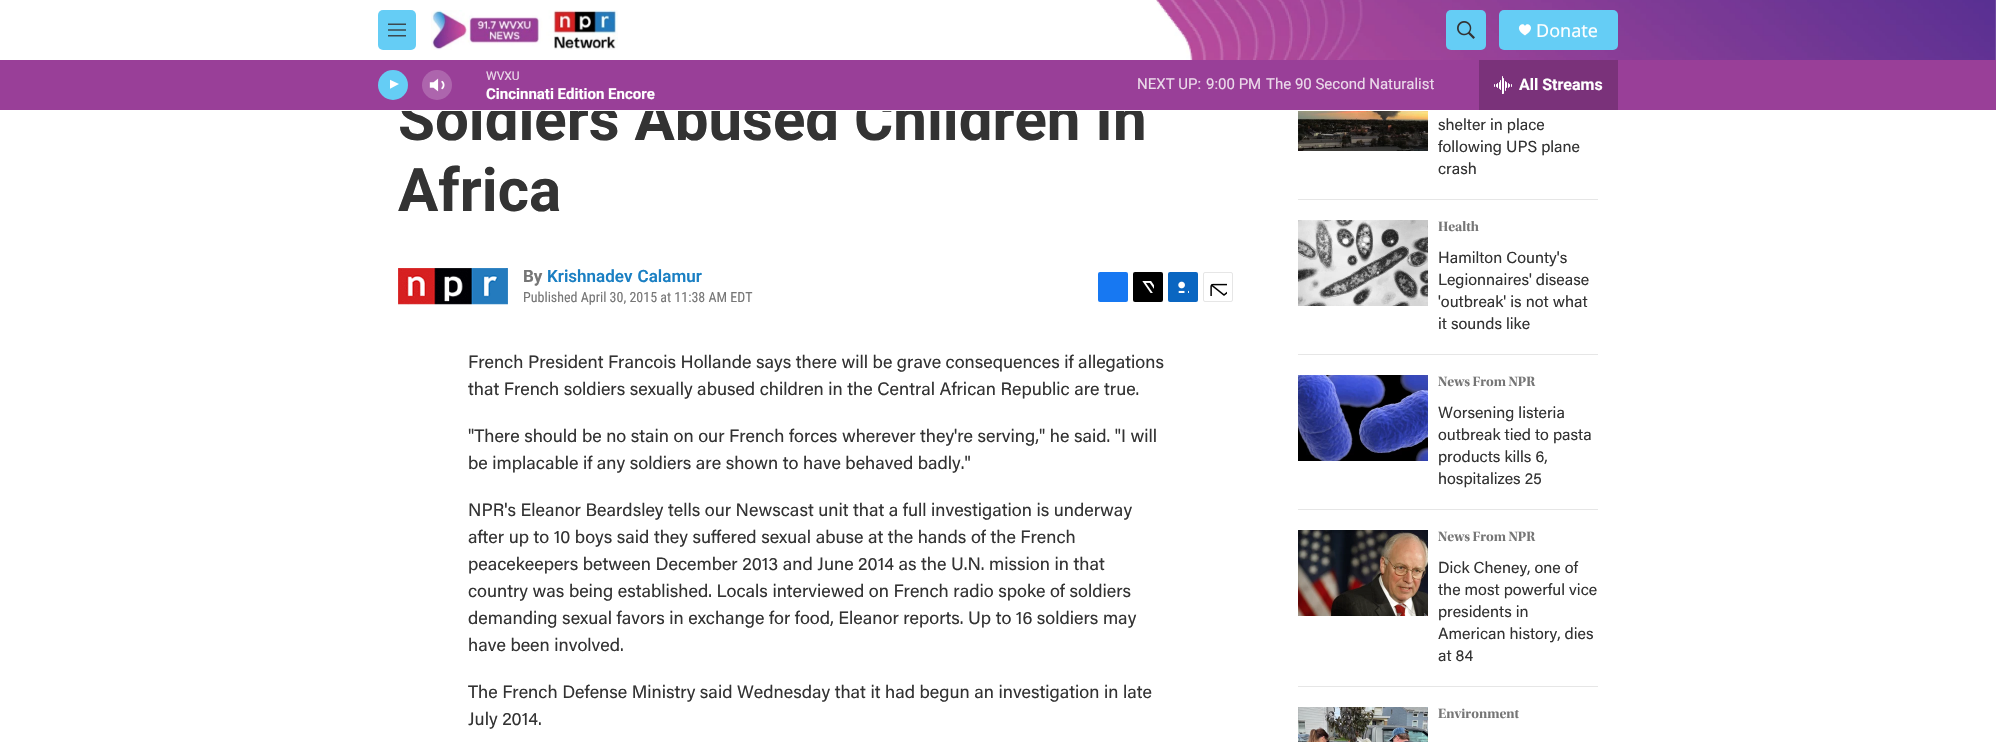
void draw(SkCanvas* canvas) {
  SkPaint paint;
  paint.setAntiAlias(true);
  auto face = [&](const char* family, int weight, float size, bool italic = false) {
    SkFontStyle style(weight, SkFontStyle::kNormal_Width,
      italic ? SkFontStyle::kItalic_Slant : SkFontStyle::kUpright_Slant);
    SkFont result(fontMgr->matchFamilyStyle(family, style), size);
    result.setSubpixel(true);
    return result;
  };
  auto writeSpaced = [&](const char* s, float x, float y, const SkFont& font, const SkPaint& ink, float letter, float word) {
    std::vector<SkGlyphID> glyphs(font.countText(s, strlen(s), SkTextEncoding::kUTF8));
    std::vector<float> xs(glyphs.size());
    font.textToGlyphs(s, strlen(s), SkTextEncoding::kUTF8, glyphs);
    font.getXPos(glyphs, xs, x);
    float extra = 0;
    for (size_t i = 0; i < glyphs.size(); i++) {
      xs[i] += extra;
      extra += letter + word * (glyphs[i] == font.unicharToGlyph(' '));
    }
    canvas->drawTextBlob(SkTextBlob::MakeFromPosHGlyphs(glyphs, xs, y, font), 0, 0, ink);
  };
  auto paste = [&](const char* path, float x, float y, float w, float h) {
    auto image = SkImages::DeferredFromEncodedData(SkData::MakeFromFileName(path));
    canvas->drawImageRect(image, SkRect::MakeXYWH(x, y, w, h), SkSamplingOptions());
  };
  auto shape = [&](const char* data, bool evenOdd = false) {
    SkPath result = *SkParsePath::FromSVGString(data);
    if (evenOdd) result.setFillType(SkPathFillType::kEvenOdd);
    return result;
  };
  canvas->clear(0xffffffff);
  paste("img/1.png", 1156, 0, 840, 60);
  paint.setColor(0xff65cdf5);
  canvas->drawRoundRect(SkRect::MakeXYWH(378, 10, 38, 40), 5, 5, paint);
  paste("img/2.png", 388, 23, 18, 14);
  paste("img/3.png", 431, 10, 187, 40);
  canvas->drawRoundRect(SkRect::MakeXYWH(1446, 10, 40, 40), 5, 5, paint);
  paste("img/4.png", 1457, 21, 18, 18);
  canvas->drawRoundRect(SkRect::MakeXYWH(1499, 10, 119, 40), 5, 5, paint);
  paint.setColor(0xffffffff);
  canvas->drawPath(shape("M1525 26C1523 21 1512.5 28 1525 35.5C1537.5 28 1527 21 1525 26Z"), paint);
  paste("img/7.png", 398, 268, 110, 37);
  paint.setColor(0xff1778f2);
  canvas->drawRoundRect(SkRect::MakeXYWH(1098, 272, 30, 30), 2, 2, paint);
  paint.setColor(0xff000000);
  canvas->drawRoundRect(SkRect::MakeXYWH(1133, 272, 30, 30), 2, 2, paint);
  paste("img/8.png", 1142, 281, 12, 12);
  paint.setColor(0xff0a66c1);
  canvas->drawRoundRect(SkRect::MakeXYWH(1168, 272, 30, 30), 2, 2, paint);
  paste("img/9.png", 1178, 281, 11, 12);
  paint.setStroke(true);
  paint.setStrokeWidth(1);
  paint.setColor(0xffe6e6e6);
  canvas->drawRoundRect(SkRect::MakeXYWH(1203.5f, 272.5f, 29, 29), 1.5f, 1.5f, paint);
  paste("img/10.png", 1210, 283, 17, 13);
  paint.setStroke(false);
  canvas->drawRect(SkRect::MakeXYWH(1298, 199, 300, 1), paint);
  paste("img/11.png", 1298, 111, 130, 40);
  canvas->drawRect(SkRect::MakeXYWH(1298, 354, 300, 1), paint);
  paste("img/12.png", 1298, 220, 130, 86);
  canvas->drawRect(SkRect::MakeXYWH(1298, 509, 300, 1), paint);
  paste("img/13.png", 1298, 375, 130, 86);
  canvas->drawRect(SkRect::MakeXYWH(1298, 686, 300, 1), paint);
  paste("img/14.png", 1298, 530, 130, 86);
  paste("img/15.png", 1298, 707, 130, 35);
  auto f0 = face("Noto Sans", 400, 18);
  paint.setColor(0xffffffff);
  canvas->drawString("Donate", 1536, 37, f0, paint);
  auto f1 = face("Roboto", 700, 60);
  paint.setColor(0xff333333);
  canvas->drawString("Soldiers Abused Children In", 398, 140, f1, paint);
  paint.setColor(0xffffffff);
  canvas->drawRect(SkRect::MakeXYWH(401, 95, 740, 16), paint);
  paint.setColor(0xff993f98);
  canvas->drawRect(SkRect::MakeXYWH(0, 60, 1996, 50), paint);
  auto f2 = face("Roboto", 400, 15);
  paint.setColor(0xffebd9ea);
  {
    const struct { const char* s; float x, y; } items[] = {
      {"The 90 Second Naturalist", 1266, 89},
      {"9:00 PM", 1206, 89},
      {"NEXT UP:", 1137, 89},
    };
    for (auto [s, x, y] : items) {
      canvas->drawString(s, x, y, f2, paint);
    }
  }
  auto f3 = face("Roboto", 400, 12);
  canvas->drawString("WVXU", 486, 80, f3, paint);
  paste("img/5.png", 429, 78, 16, 14);
  paint.setColor(0x33ffffff);
  canvas->drawCircle(437, 85, 15, paint);
  paint.setColor(0xff65cdf5);
  canvas->drawCircle(393, 85, 15, paint);
  canvas->save();
  canvas->clipRect(SkRect::MakeXYWH(390, 78, 12, 15));
  paint.setColor(0xffffffff);
  canvas->drawPath(shape("M389.5 79.5L399 84L389.5 89Z"), paint);
  canvas->restore();
  paint.setColor(0xff7a327a);
  canvas->drawRect(SkRect::MakeXYWH(1479, 60, 139, 50), paint);
  paste("img/6.png", 1494, 76, 18, 18);
  auto f4 = face("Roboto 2", 700, 15);
  paint.setColor(0xffffffff);
  canvas->drawString("Cincinnati Edition Encore", 486, 99, f4, paint);
  auto f5 = face("Roboto 2", 700, 16);
  canvas->drawString("All Streams", 1519, 90, f5, paint);
  paint.setColor(0xff333333);
  canvas->drawString("Africa", 398, 211, f1, paint);
  auto f6 = face("Roboto", 700, 17);
  paint.setColor(0xff767676);
  canvas->drawString("By", 523, 282, f6, paint);
  auto f7 = face("Roboto", 600, 17);
  paint.setColor(0xff1a7fc3);
  writeSpaced("Krishnadev Calamur", 547, 282, f7, paint, 0, 1);
  auto f8 = face("Roboto Condensed", 400, 14);
  paint.setColor(0xff767676);
  canvas->drawString("Published April 30, 2015 at 11:38 AM EDT", 523, 302, f8, paint);
  auto f9 = face("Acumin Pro", 400, 18);
  paint.setColor(0xff333333);
  {
    const struct { const char* s; float x, y; } items[] = {
      {"French President Francois Hollande says there will be grave consequences if allegations", 468, 368},
      {"that French soldiers sexually abused children in the Central African Republic are true.", 468, 395},
      {"\"There should be no stain on our French forces wherever they're serving,\" he said. \"I will", 468, 442},
      {"be implacable if any soldiers are shown to have behaved badly.\"", 468, 469},
      {"NPR's Eleanor Beardsley tells our Newscast unit that a full investigation is underway", 468, 516},
      {"after up to 10 boys said they suffered sexual abuse at the hands of the French", 468, 543},
      {"peacekeepers between December 2013 and June 2014 as the U.N. mission in that", 468, 570},
      {"country was being established. Locals interviewed on French radio spoke of soldiers", 468, 597},
      {"demanding sexual favors in exchange for food, Eleanor reports. Up to 16 soldiers may", 468, 624},
      {"have been involved.", 468, 651},
      {"The French Defense Ministry said Wednesday that it had begun an investigation in late", 468, 698},
      {"July 2014.", 468, 725},
    };
    for (auto [s, x, y] : items) {
      canvas->drawString(s, x, y, f9, paint);
    }
  }
  auto f10 = face("Acumin Pro", 400, 16);
  {
    const struct { const char* s; float x, y; } items[] = {
      {"shelter in place", 1438, 130},
      {"following UPS plane", 1438, 152},
      {"crash", 1438, 174},
    };
    for (auto [s, x, y] : items) {
      canvas->drawString(s, x, y, f10, paint);
    }
  }
  auto f11 = face("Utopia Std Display", 700, 14);
  paint.setColor(0xff767676);
  canvas->drawString("Health", 1438, 231, f11, paint);
  paint.setColor(0xff333333);
  {
    const struct { const char* s; float x, y; } items[] = {
      {"Hamilton County's", 1438, 263},
      {"Legionnaires' disease", 1438, 285},
      {"'outbreak' is not what", 1438, 307},
      {"it sounds like", 1438, 329},
    };
    for (auto [s, x, y] : items) {
      canvas->drawString(s, x, y, f10, paint);
    }
  }
  paint.setColor(0xff767676);
  canvas->drawString("News From NPR", 1438, 386, f11, paint);
  paint.setColor(0xff333333);
  {
    const struct { const char* s; float x, y; } items[] = {
      {"Worsening listeria", 1438, 418},
      {"outbreak tied to pasta", 1438, 440},
      {"products kills 6,", 1438, 462},
      {"hospitalizes 25", 1438, 484},
    };
    for (auto [s, x, y] : items) {
      canvas->drawString(s, x, y, f10, paint);
    }
  }
  paint.setColor(0xff767676);
  canvas->drawString("News From NPR", 1438, 541, f11, paint);
  paint.setColor(0xff333333);
  {
    const struct { const char* s; float x, y; } items[] = {
      {"Dick Cheney, one of", 1438, 573},
      {"the most powerful vice", 1438, 595},
      {"presidents in", 1438, 617},
      {"American history, dies", 1438, 639},
      {"at 84", 1438, 661},
    };
    for (auto [s, x, y] : items) {
      canvas->drawString(s, x, y, f10, paint);
    }
  }
  paint.setColor(0xff767676);
  canvas->drawString("Environment", 1438, 718, f11, paint);
}
